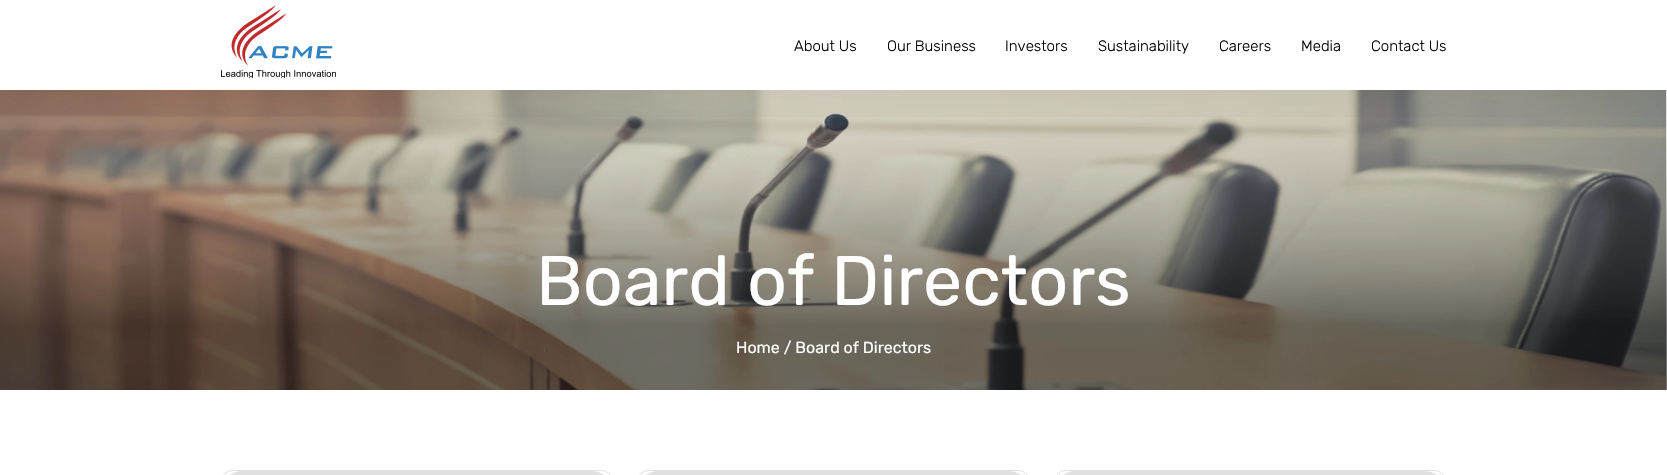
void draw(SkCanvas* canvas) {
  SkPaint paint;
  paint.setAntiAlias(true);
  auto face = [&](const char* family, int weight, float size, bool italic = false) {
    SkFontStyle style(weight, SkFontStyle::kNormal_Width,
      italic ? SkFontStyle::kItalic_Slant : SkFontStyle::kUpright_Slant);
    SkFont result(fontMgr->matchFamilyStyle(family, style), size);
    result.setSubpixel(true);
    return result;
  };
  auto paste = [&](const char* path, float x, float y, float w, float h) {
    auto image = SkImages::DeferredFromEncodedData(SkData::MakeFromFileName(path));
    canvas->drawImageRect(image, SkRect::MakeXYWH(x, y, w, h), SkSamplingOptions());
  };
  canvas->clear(0xffffffff);
  paste("img/2.png", 0, 90, 1667, 300);
  canvas->save();
  canvas->clipRect(SkRect::MakeXYWH(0, 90, 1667, 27));
  paint.setColor(0x14000000);
  paint.setMaskFilter(SkMaskFilter::MakeBlur(kNormal_SkBlurStyle, 21.5f));
  canvas->drawRect(SkRect::MakeXYWH(0, 13, 1667, 90), paint);
  paint.setMaskFilter(nullptr);
  canvas->restore();
  paste("img/1.png", 221, 5, 115, 73);
  paint.setStroke(true);
  paint.setStrokeWidth(1);
  paint.setColor(0xffe1e1e1);
  canvas->drawRoundRect(SkRect::MakeXYWH(221.5f, 470.5f, 391, 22), 16.5f, 16.5f, paint);
  paste("img/3.png", 230, 471, 374, 4);
  canvas->drawRoundRect(SkRect::MakeXYWH(637.5f, 470.5f, 392, 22), 16.5f, 16.5f, paint);
  paste("img/4.png", 646, 471, 375, 4);
  canvas->drawRoundRect(SkRect::MakeXYWH(1054.5f, 470.5f, 391, 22), 16.5f, 16.5f, paint);
  paste("img/5.png", 1063, 471, 374, 4);
  auto f0 = face("Rubik", 300, 15);
  paint.setStroke(false);
  paint.setColor(0xff000000);
  {
    const struct { const char* s; float x, y; } items[] = {
      {"About Us", 794, 51},
      {"Our Business", 887, 51},
      {"Investors", 1005, 51},
      {"Sustainability", 1098, 51},
      {"Careers", 1219, 51},
      {"Media", 1301, 51},
      {"Contact Us", 1371, 51},
    };
    for (auto [s, x, y] : items) {
      canvas->drawString(s, x, y, f0, paint);
    }
  }
  auto f1 = face("Rubik", 400, 70);
  paint.setColor(0xffffffff);
  canvas->drawString("Board of Directors", 536, 305, f1, paint);
  auto f2 = face("Rubik", 400, 16);
  canvas->drawString("Home / Board of Directors", 736, 353, f2, paint);
}
